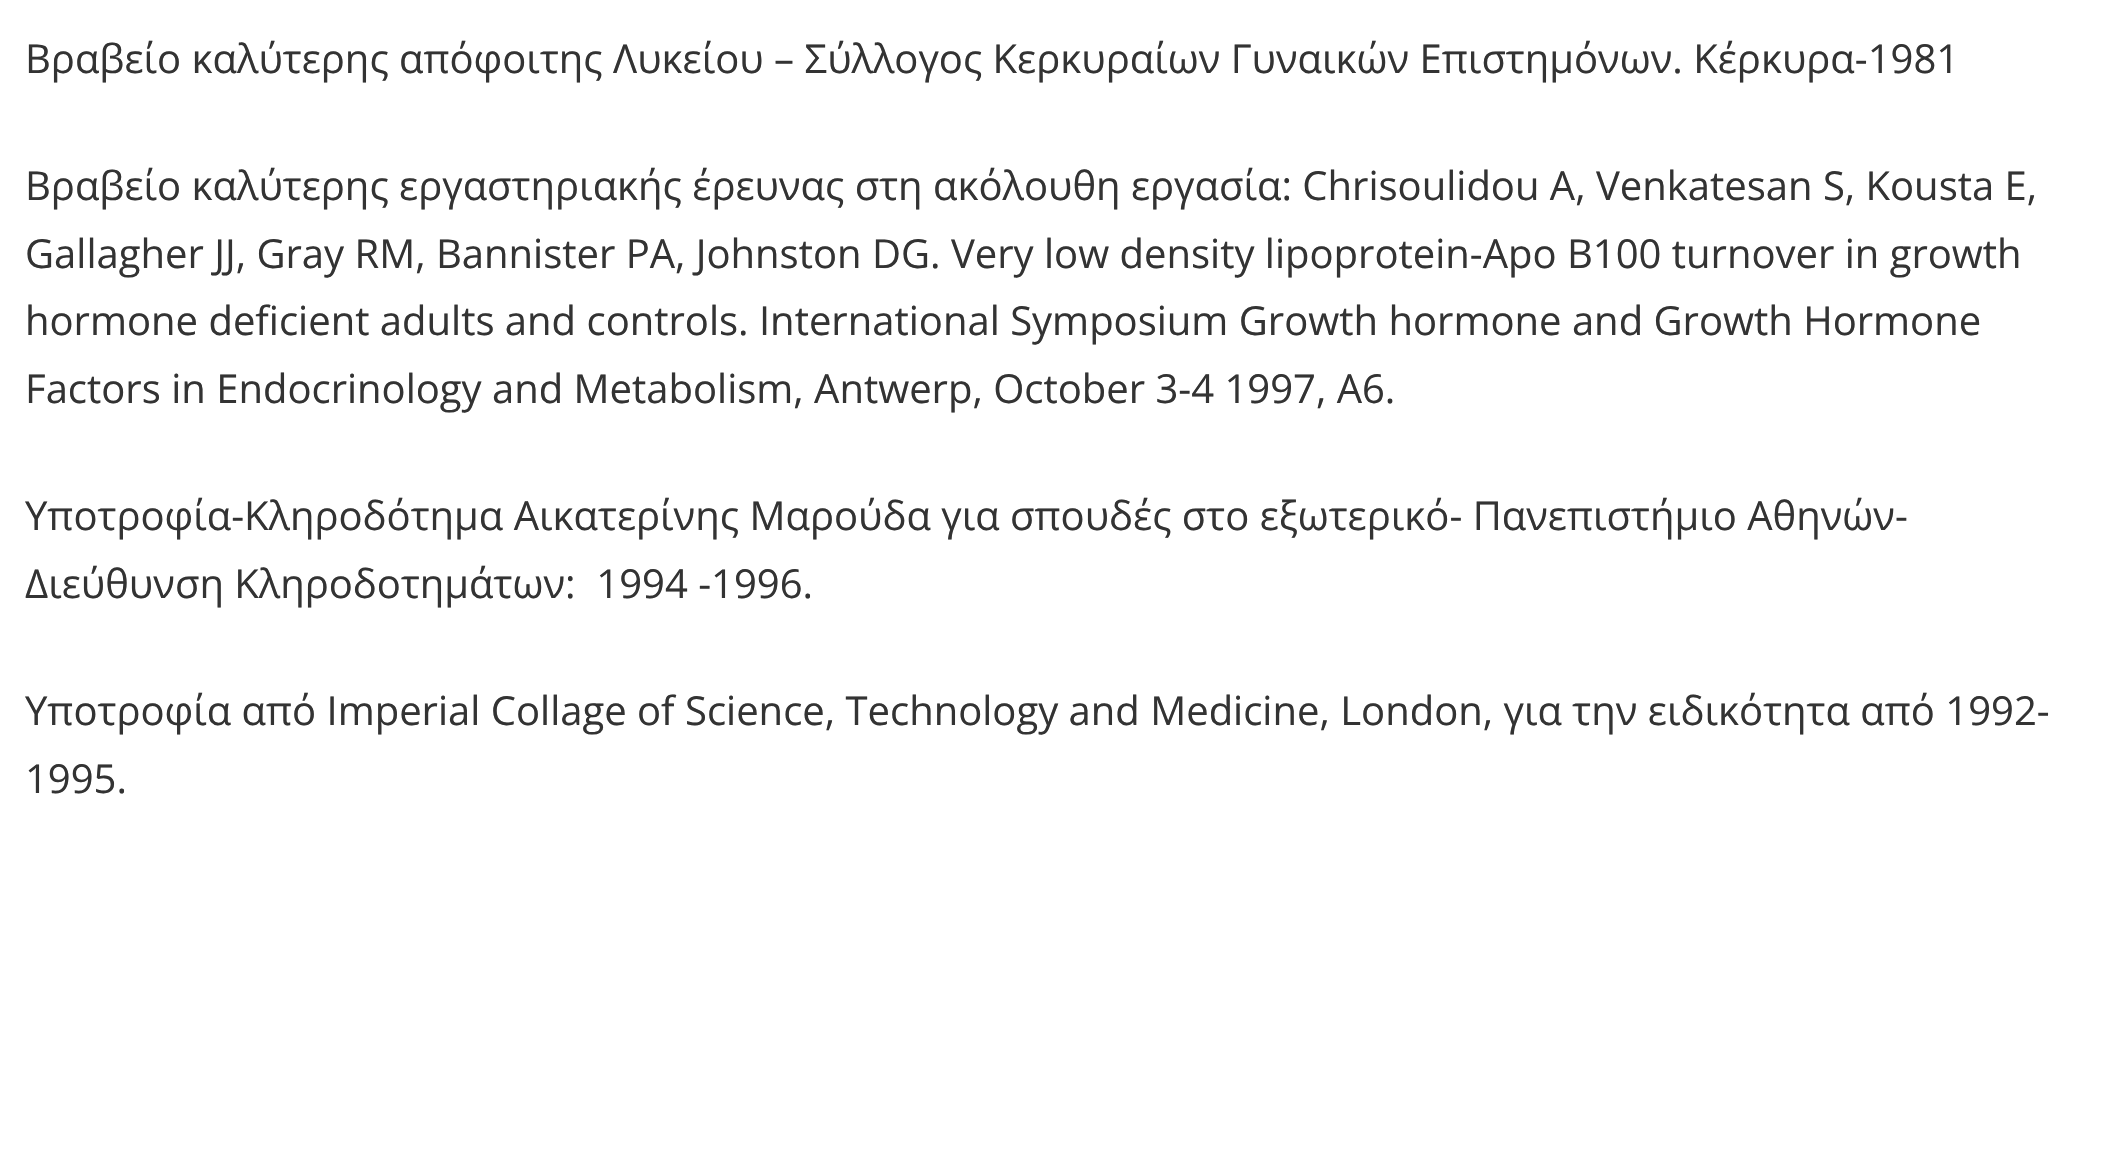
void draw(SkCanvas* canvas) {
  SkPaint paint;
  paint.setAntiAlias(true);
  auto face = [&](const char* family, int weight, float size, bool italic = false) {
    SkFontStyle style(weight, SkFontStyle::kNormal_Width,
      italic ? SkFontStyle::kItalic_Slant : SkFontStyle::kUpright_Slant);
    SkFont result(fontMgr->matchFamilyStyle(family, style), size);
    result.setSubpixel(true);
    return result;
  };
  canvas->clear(0xffffffff);
  auto f0 = face("Open Sans", 400, 40);
  paint.setColor(0xff333333);
  {
    const struct { const char* s; float x, y; } items[] = {
      {"Βραβείο καλύτερης απόφοιτης Λυκείου – Σύλλογος Κερκυραίων Γυναικών Επιστημόνων. Κέρκυρα-1981", 25, 73},
      {"Bραβείο καλύτερης εργαστηριακής έρευνας στη ακόλουθη εργασία: Chrisoulidou A, Venkatesan S, Kousta E,", 25, 200},
      {"Gallagher JJ, Gray RM, Bannister PA, Johnston DG. Very low density lipoprotein-Apo B100 turnover in growth", 25, 268},
      {"hormone deficient adults and controls. International Symposium Growth hormone and Growth Hormone", 25, 335},
      {"Factors in Endocrinology and Metabolism, Antwerp, October 3-4 1997, A6.", 25, 403},
      {"Υποτροφία-Κληροδότημα Αικατερίνης Μαρούδα για σπουδές στο εξωτερικό- Πανεπιστήμιο Αθηνών-", 25, 530},
      {"Διεύθυνση Κληροδοτημάτων:  1994 -1996.", 25, 598},
      {"Υποτροφία από Imperial Collage οf Science, Technology and Medicine, London, για την ειδικότητα από 1992-", 25, 725},
      {"1995.", 25, 793},
    };
    for (auto [s, x, y] : items) {
      canvas->drawString(s, x, y, f0, paint);
    }
  }
}
